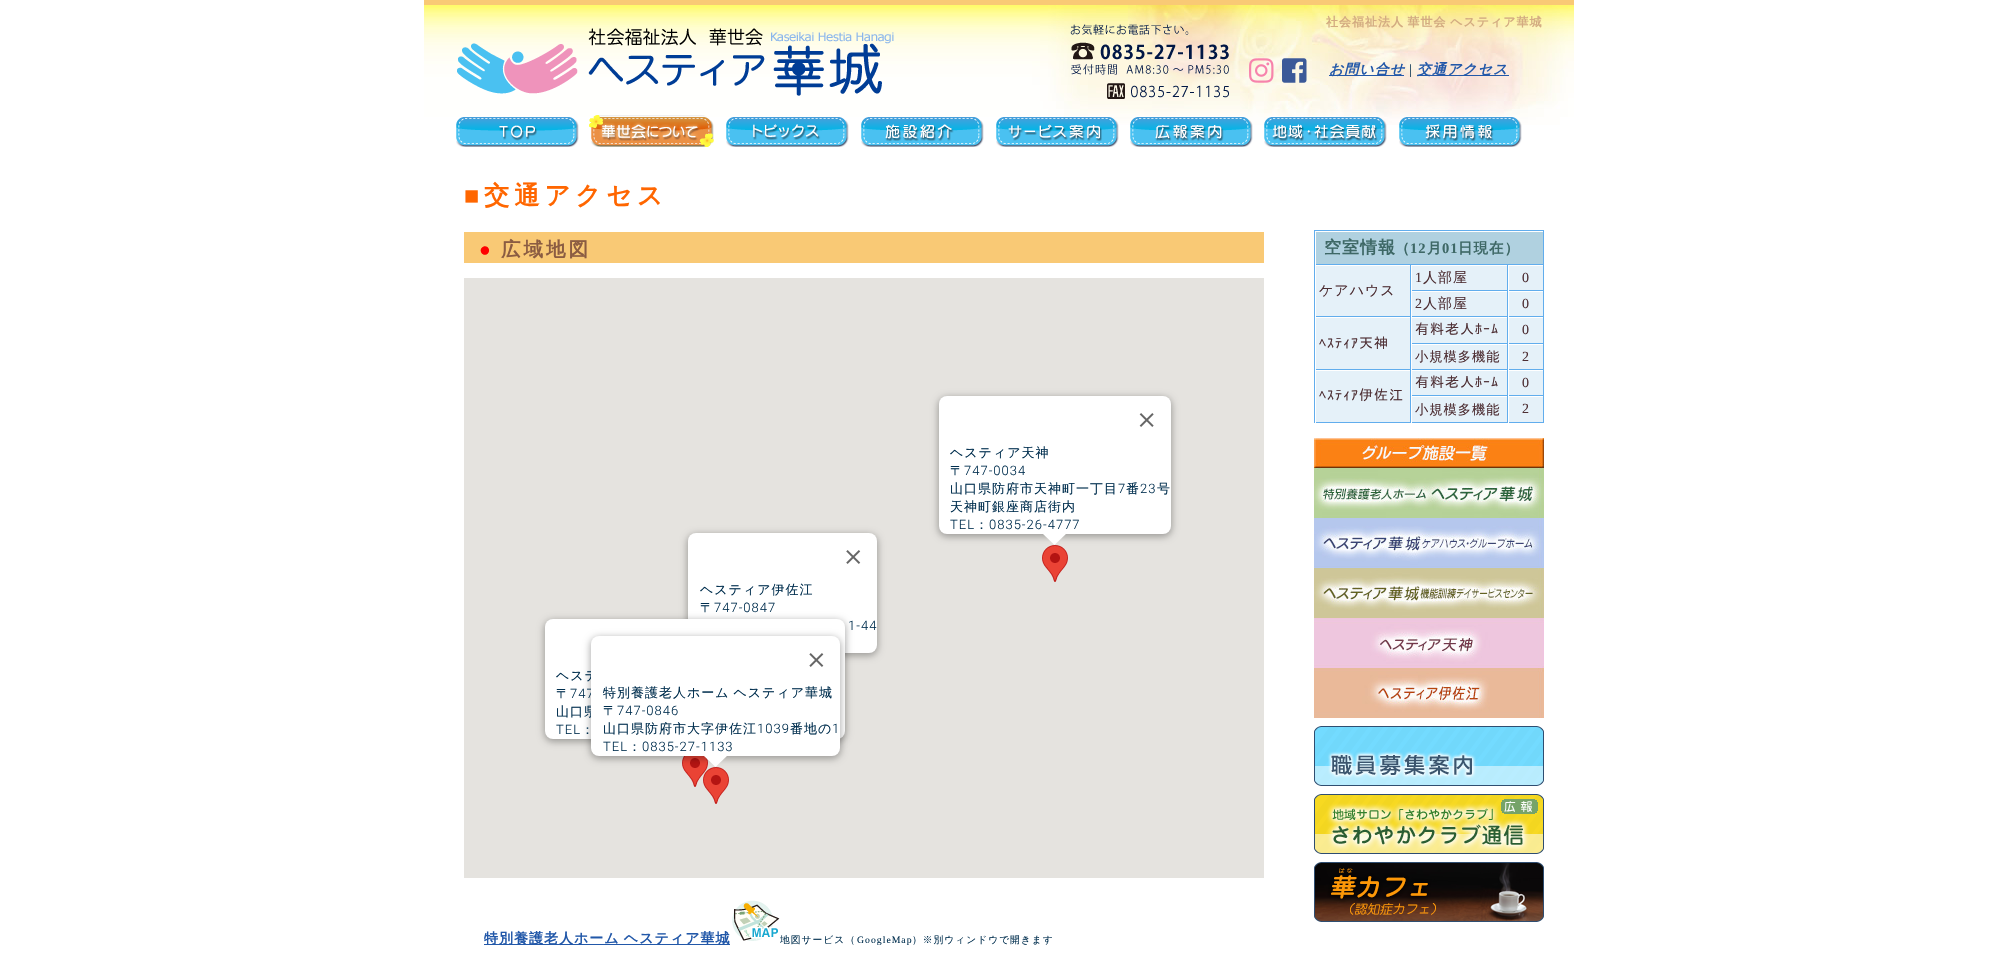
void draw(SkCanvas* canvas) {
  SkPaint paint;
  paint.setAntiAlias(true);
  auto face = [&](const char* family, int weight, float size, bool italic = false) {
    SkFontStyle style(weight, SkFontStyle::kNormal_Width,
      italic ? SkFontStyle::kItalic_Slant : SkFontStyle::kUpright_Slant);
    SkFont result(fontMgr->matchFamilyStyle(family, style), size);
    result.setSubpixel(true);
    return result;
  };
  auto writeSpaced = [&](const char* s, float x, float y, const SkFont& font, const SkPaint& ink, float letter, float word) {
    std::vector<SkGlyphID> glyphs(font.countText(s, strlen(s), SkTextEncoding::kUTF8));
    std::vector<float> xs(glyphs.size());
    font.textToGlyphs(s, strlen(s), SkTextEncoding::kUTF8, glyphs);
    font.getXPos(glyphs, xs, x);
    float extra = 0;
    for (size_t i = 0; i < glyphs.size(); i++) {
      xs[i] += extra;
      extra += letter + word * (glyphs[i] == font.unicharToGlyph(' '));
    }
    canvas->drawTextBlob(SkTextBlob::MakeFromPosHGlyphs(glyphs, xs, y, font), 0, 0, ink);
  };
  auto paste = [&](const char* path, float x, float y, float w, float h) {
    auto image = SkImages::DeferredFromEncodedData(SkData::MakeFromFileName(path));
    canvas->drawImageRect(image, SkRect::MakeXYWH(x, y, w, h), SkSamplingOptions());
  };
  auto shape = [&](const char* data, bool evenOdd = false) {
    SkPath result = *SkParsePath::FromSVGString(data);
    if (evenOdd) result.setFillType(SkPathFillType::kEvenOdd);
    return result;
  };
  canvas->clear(0xffffffff);
  paint.setColor(0xfff9c975);
  canvas->drawRect(SkRect::MakeXYWH(424, 0, 1150, 5), paint);
  paste("img/1.png", 424, 5, 1150, 120);
  paste("img/2.png", 457, 28, 437, 68);
  paste("img/3.png", 1070, 24, 159, 75);
  paste("img/4.png", 1249, 58, 25, 25);
  paste("img/5.png", 1282, 58, 25, 25);
  paint.setColor(0xff2258a9);
  canvas->drawRect(SkRect::MakeXYWH(1329, 75, 75, 1), paint);
  canvas->drawRect(SkRect::MakeXYWH(1417, 75, 92, 1), paint);
  paste("img/6.png", 456, 117, 123, 30);
  paste("img/7.png", 589, 115, 125, 32);
  paste("img/8.png", 726, 117, 123, 30);
  paste("img/9.png", 861, 117, 123, 30);
  paste("img/10.png", 996, 116, 123, 31);
  paste("img/11.png", 1130, 116, 123, 31);
  paste("img/12.png", 1264, 116, 123, 31);
  paste("img/13.png", 1399, 116, 123, 31);
  paint.setColor(0xfff9c975);
  canvas->drawRect(SkRect::MakeXYWH(464, 232, 800, 31), paint);
  paint.setColor(0xffe5e3df);
  canvas->drawRect(SkRect::MakeXYWH(464, 278, 800, 600), paint);
  paste("img/17.png", 1042, 545, 26, 37);
  paint.setColor(0x4d000000);
  paint.setMaskFilter(SkMaskFilter::MakeBlur(kNormal_SkBlurStyle, 3.5f));
  canvas->drawRoundRect(SkRect::MakeXYWH(938, 397, 234, 140), 9, 9, paint);
  paint.setMaskFilter(nullptr);
  paint.setColor(0xffffffff);
  canvas->drawRoundRect(SkRect::MakeXYWH(939, 396, 232, 138), 8, 8, paint);
  paste("img/14.png", 1139, 413, 15, 14);
  canvas->drawPath(shape("M1043 534V533H1067L1054.5 545Z"), paint);
  paint.setColor(0x4d000000);
  paint.setMaskFilter(SkMaskFilter::MakeBlur(kNormal_SkBlurStyle, 3.5f));
  canvas->drawRoundRect(SkRect::MakeXYWH(687, 534, 191, 122), 9, 9, paint);
  paint.setMaskFilter(nullptr);
  paint.setColor(0xffffffff);
  canvas->drawRoundRect(SkRect::MakeXYWH(688, 533, 189, 120), 8, 8, paint);
  paste("img/15.png", 846, 550, 15, 14);
  paint.setColor(0x4d000000);
  paint.setMaskFilter(SkMaskFilter::MakeBlur(kNormal_SkBlurStyle, 3.5f));
  canvas->drawRoundRect(SkRect::MakeXYWH(544, 620, 302, 122), 9, 9, paint);
  paint.setMaskFilter(nullptr);
  paint.setColor(0xffffffff);
  canvas->drawRoundRect(SkRect::MakeXYWH(545, 619, 300, 120), 8, 8, paint);
  paste("img/18.png", 682, 756, 26, 31);
  paste("img/19.png", 703, 767, 26, 37);
  paint.setColor(0x4d000000);
  paint.setMaskFilter(SkMaskFilter::MakeBlur(kNormal_SkBlurStyle, 3.5f));
  canvas->drawRoundRect(SkRect::MakeXYWH(590, 637, 251, 122), 9, 9, paint);
  paint.setMaskFilter(nullptr);
  paint.setColor(0xff2258a9);
  canvas->drawRect(SkRect::MakeXYWH(484, 944, 246, 1), paint);
  paste("img/20.png", 732, 900, 48, 41);
  {
    const struct { float x, y, w, h; SkColor color; } items[] = {
      {1314, 230, 230, 1, 0xff61aded},
      {1314, 230, 1, 193, 0xff61aded},
      {1316, 232, 227, 32, 0xffb0d1e0},
      {1543, 231, 1, 192, 0xff61aded},
      {1315, 264, 229, 1, 0xff61aded},
      {1315, 264, 1, 1, 0xffffffff},
      {1412, 266, 95, 24, 0xffe5f1f9},
      {1507, 265, 1, 158, 0xff61aded},
      {1411, 290, 133, 1, 0xff61aded},
      {1411, 290, 1, 1, 0xffffffff},
      {1509, 266, 34, 24, 0xffe5f1f9},
      {1508, 290, 1, 1, 0xffffffff},
      {1316, 266, 94, 50, 0xffe5f1f9},
      {1410, 265, 1, 158, 0xff61aded},
      {1315, 316, 96, 1, 0xff61aded},
      {1315, 316, 1, 1, 0xffffffff},
      {1412, 292, 95, 24, 0xffe5f1f9},
      {1411, 316, 133, 1, 0xff61aded},
      {1411, 316, 1, 1, 0xffffffff},
      {1509, 292, 34, 24, 0xffe5f1f9},
      {1508, 316, 1, 1, 0xffffffff},
      {1412, 318, 95, 25, 0xffe5f1f9},
      {1411, 343, 133, 1, 0xff61aded},
      {1411, 343, 1, 1, 0xffffffff},
      {1509, 318, 34, 25, 0xffe5f1f9},
      {1508, 343, 1, 1, 0xffffffff},
      {1316, 318, 94, 51, 0xffe5f1f9},
      {1315, 369, 229, 1, 0xff61aded},
      {1315, 369, 1, 1, 0xffffffff},
      {1412, 345, 95, 24, 0xffe5f1f9},
      {1411, 369, 1, 1, 0xffffffff},
      {1509, 345, 34, 24, 0xffe5f1f9},
      {1508, 369, 1, 1, 0xffffffff},
      {1412, 371, 95, 24, 0xffe5f1f9},
      {1411, 395, 133, 1, 0xff61aded},
      {1411, 395, 1, 1, 0xffffffff},
      {1509, 371, 34, 24, 0xffe5f1f9},
      {1508, 395, 1, 1, 0xffffffff},
      {1316, 371, 94, 51, 0xffe5f1f9},
      {1315, 422, 229, 1, 0xff61aded},
      {1315, 422, 1, 1, 0xffffffff},
      {1412, 397, 95, 25, 0xffe5f1f9},
      {1411, 422, 1, 1, 0xffffffff},
      {1509, 397, 34, 25, 0xffe5f1f9},
      {1508, 422, 1, 1, 0xffffffff},
    };
    for (auto [x, y, w, h, color] : items) {
      paint.setColor(color);
      canvas->drawRect(SkRect::MakeXYWH(x, y, w, h), paint);
    }
  }
  paste("img/21.png", 1314, 438, 230, 30);
  paste("img/22.png", 1314, 468, 230, 50);
  paste("img/23.png", 1314, 518, 230, 50);
  paste("img/24.png", 1314, 568, 230, 50);
  paste("img/25.png", 1314, 618, 230, 50);
  paste("img/26.png", 1314, 668, 230, 50);
  paste("img/27.png", 1314, 726, 230, 60);
  paste("img/28.png", 1314, 794, 230, 60);
  paste("img/29.png", 1314, 862, 230, 60);
  auto f0 = face("WenQuanYi Zen Hei", 700, 12);
  paint.setColor(0xffd3ab81);
  writeSpaced("社会福祉法人 華世会 ヘスティア華城", 1326, 26, f0, paint, 1, -1);
  auto f1 = face("WenQuanYi Zen Hei", 700, 14, true);
  paint.setColor(0xff2258a9);
  writeSpaced("お問い合せ", 1329, 74, f1, paint, 1, 0);
  auto f2 = face("Liberation Serif", 400, 14);
  paint.setColor(0xff002e4e);
  writeSpaced("|", 1409, 74, f2, paint, 1, 0);
  paint.setColor(0xff2258a9);
  writeSpaced("交通アクセス", 1417, 74, f1, paint, 1, 0);
  auto f3 = face("Liberation Serif", 700, 25.25f);
  paint.setColor(0xffff6600);
  writeSpaced("■", 464, 204, f3, paint, 5, 0);
  auto f4 = face("WenQuanYi Zen Hei", 700, 25.25f);
  writeSpaced("交通アクセス", 484, 204, f4, paint, 5, 0);
  auto f5 = face("Liberation Serif", 700, 19.5f);
  paint.setColor(0xffff0000);
  writeSpaced("●", 479, 256, f5, paint, 3, 0);
  auto f6 = face("WenQuanYi Zen Hei", 700, 19.5f);
  paint.setColor(0xff8b5c42);
  writeSpaced("広域地図", 501, 256, f6, paint, 3, 0);
  auto f7 = face("WenQuanYi Zen Hei", 500, 13);
  paint.setColor(0xff002e4e);
  writeSpaced("ヘスティア天神", 950, 457, f7, paint, 1, 0);
  writeSpaced("〒", 950, 475, f7, paint, 1, 0);
  auto f8 = face("Roboto", 300, 13);
  writeSpaced("747-0034", 964, 475, f8, paint, 1, 0);
  writeSpaced("山口県防府市天神町一丁目", 950, 493, f7, paint, 1, 0);
  writeSpaced("7", 1118, 493, f8, paint, 1, 0);
  writeSpaced("番", 1126, 493, f7, paint, 1, 0);
  writeSpaced("23", 1140, 493, f8, paint, 1, 0);
  writeSpaced("号", 1157, 493, f7, paint, 1, 0);
  writeSpaced("天神町銀座商店街内", 950, 511, f7, paint, 1, 0);
  writeSpaced("TEL", 950, 529, f8, paint, 1, 0);
  writeSpaced("：", 975, 529, f7, paint, 1, 0);
  writeSpaced("0835-26-4777", 989, 529, f8, paint, 1, 0);
  writeSpaced("ヘスティア伊佐江", 700, 594, f7, paint, 1, 0);
  writeSpaced("〒", 700, 612, f7, paint, 1, 0);
  writeSpaced("747-0847", 714, 612, f8, paint, 1, 0);
  writeSpaced("1-44", 848, 630, f8, paint, 1, 0);
  writeSpaced("ヘステ", 556, 680, f7, paint, 1, -1);
  writeSpaced("〒", 556, 698, f7, paint, 1, 0);
  writeSpaced("747", 570, 698, f8, paint, 1, 0);
  writeSpaced("山口県", 556, 716, f7, paint, 1, 0);
  writeSpaced("TEL", 556, 734, f8, paint, 1, 0);
  writeSpaced("：", 581, 734, f7, paint, 1, 0);
  paint.setColor(0xffffffff);
  canvas->drawRoundRect(SkRect::MakeXYWH(591, 636, 249, 120), 8, 8, paint);
  paste("img/16.png", 809, 653, 15, 14);
  paint.setColor(0xff002e4e);
  writeSpaced("特別養護老人ホーム ヘスティア華城", 603, 697, f7, paint, 1, -1);
  writeSpaced("〒", 603, 715, f7, paint, 1, 0);
  writeSpaced("747-0846", 617, 715, f8, paint, 1, 0);
  writeSpaced("山口県防府市大字伊佐江", 603, 733, f7, paint, 1, 0);
  writeSpaced("1039", 757, 733, f8, paint, 1, 0);
  writeSpaced("番地の", 790, 733, f7, paint, 1, 0);
  writeSpaced("1", 832, 733, f8, paint, 1, 0);
  writeSpaced("TEL", 603, 751, f8, paint, 1, 0);
  writeSpaced("：", 628, 751, f7, paint, 1, 0);
  writeSpaced("0835-27-1133", 642, 751, f8, paint, 1, 0);
  paint.setColor(0xffffffff);
  canvas->drawPath(shape("M704 756V755H728L715.5 767Z"), paint);
  auto f9 = face("WenQuanYi Zen Hei", 700, 14);
  paint.setColor(0xff2258a9);
  writeSpaced("特別養護老人ホーム ヘスティア華城", 484, 943, f9, paint, 1, -1);
  auto f10 = face("WenQuanYi Zen Hei", 500, 9.75f);
  paint.setColor(0xff002e4e);
  writeSpaced("地図サービス（", 780, 943, f10, paint, 1, 0);
  auto f11 = face("Liberation Serif", 400, 9.75f);
  writeSpaced("GoogleMap", 857, 943, f11, paint, 1, 0);
  writeSpaced("）※別ウィンドウで開きます", 912, 943, f10, paint, 1, 0);
  auto f12 = face("WenQuanYi Zen Hei", 700, 17);
  paint.setColor(0xff3e6866);
  writeSpaced("空室情報", 1324, 253, f12, paint, 1, 0);
  auto f13 = face("WenQuanYi Zen Hei", 700, 14.5f);
  writeSpaced("（", 1395, 253, f13, paint, 1, 0);
  auto f14 = face("Liberation Serif", 700, 14.5f);
  writeSpaced("12", 1410, 253, f14, paint, 1, 0);
  writeSpaced("月", 1427, 253, f13, paint, 1, 0);
  writeSpaced("01", 1442, 253, f14, paint, 1, 0);
  writeSpaced("日現在）", 1458, 253, f13, paint, 1, 0);
  paint.setColor(0xff4d2e33);
  writeSpaced("1", 1415, 282, f2, paint, 1, 0);
  auto f15 = face("WenQuanYi Zen Hei", 500, 14);
  writeSpaced("人部屋", 1423, 282, f15, paint, 1, 0);
  writeSpaced("0", 1522, 282, f2, paint, 1, 0);
  writeSpaced("ケアハウス", 1319, 295, f15, paint, 1, 0);
  writeSpaced("2", 1415, 308, f2, paint, 1, 0);
  writeSpaced("人部屋", 1423, 308, f15, paint, 1, 0);
  writeSpaced("0", 1522, 308, f2, paint, 1, 0);
  auto f16 = face("IPAGothic", 400, 14);
  writeSpaced("有料老人ﾎｰﾑ", 1415, 334, f16, paint, 1, 0);
  writeSpaced("0", 1522, 334, f2, paint, 1, 0);
  writeSpaced("ﾍｽﾃｨｱ天神", 1319, 348, f16, paint, 1, 0);
  auto f17 = face("WenQuanYi Zen Hei", 500, 13.25f);
  writeSpaced("小規模多機能", 1415, 361, f17, paint, 1, 0);
  writeSpaced("2", 1522, 361, f2, paint, 1, 0);
  writeSpaced("有料老人ﾎｰﾑ", 1415, 387, f16, paint, 1, 0);
  writeSpaced("0", 1522, 387, f2, paint, 1, 0);
  writeSpaced("ﾍｽﾃｨｱ伊佐江", 1319, 400, f16, paint, 1, 0);
  writeSpaced("小規模多機能", 1415, 414, f17, paint, 1, 0);
  writeSpaced("2", 1522, 413, f2, paint, 1, 0);
}
